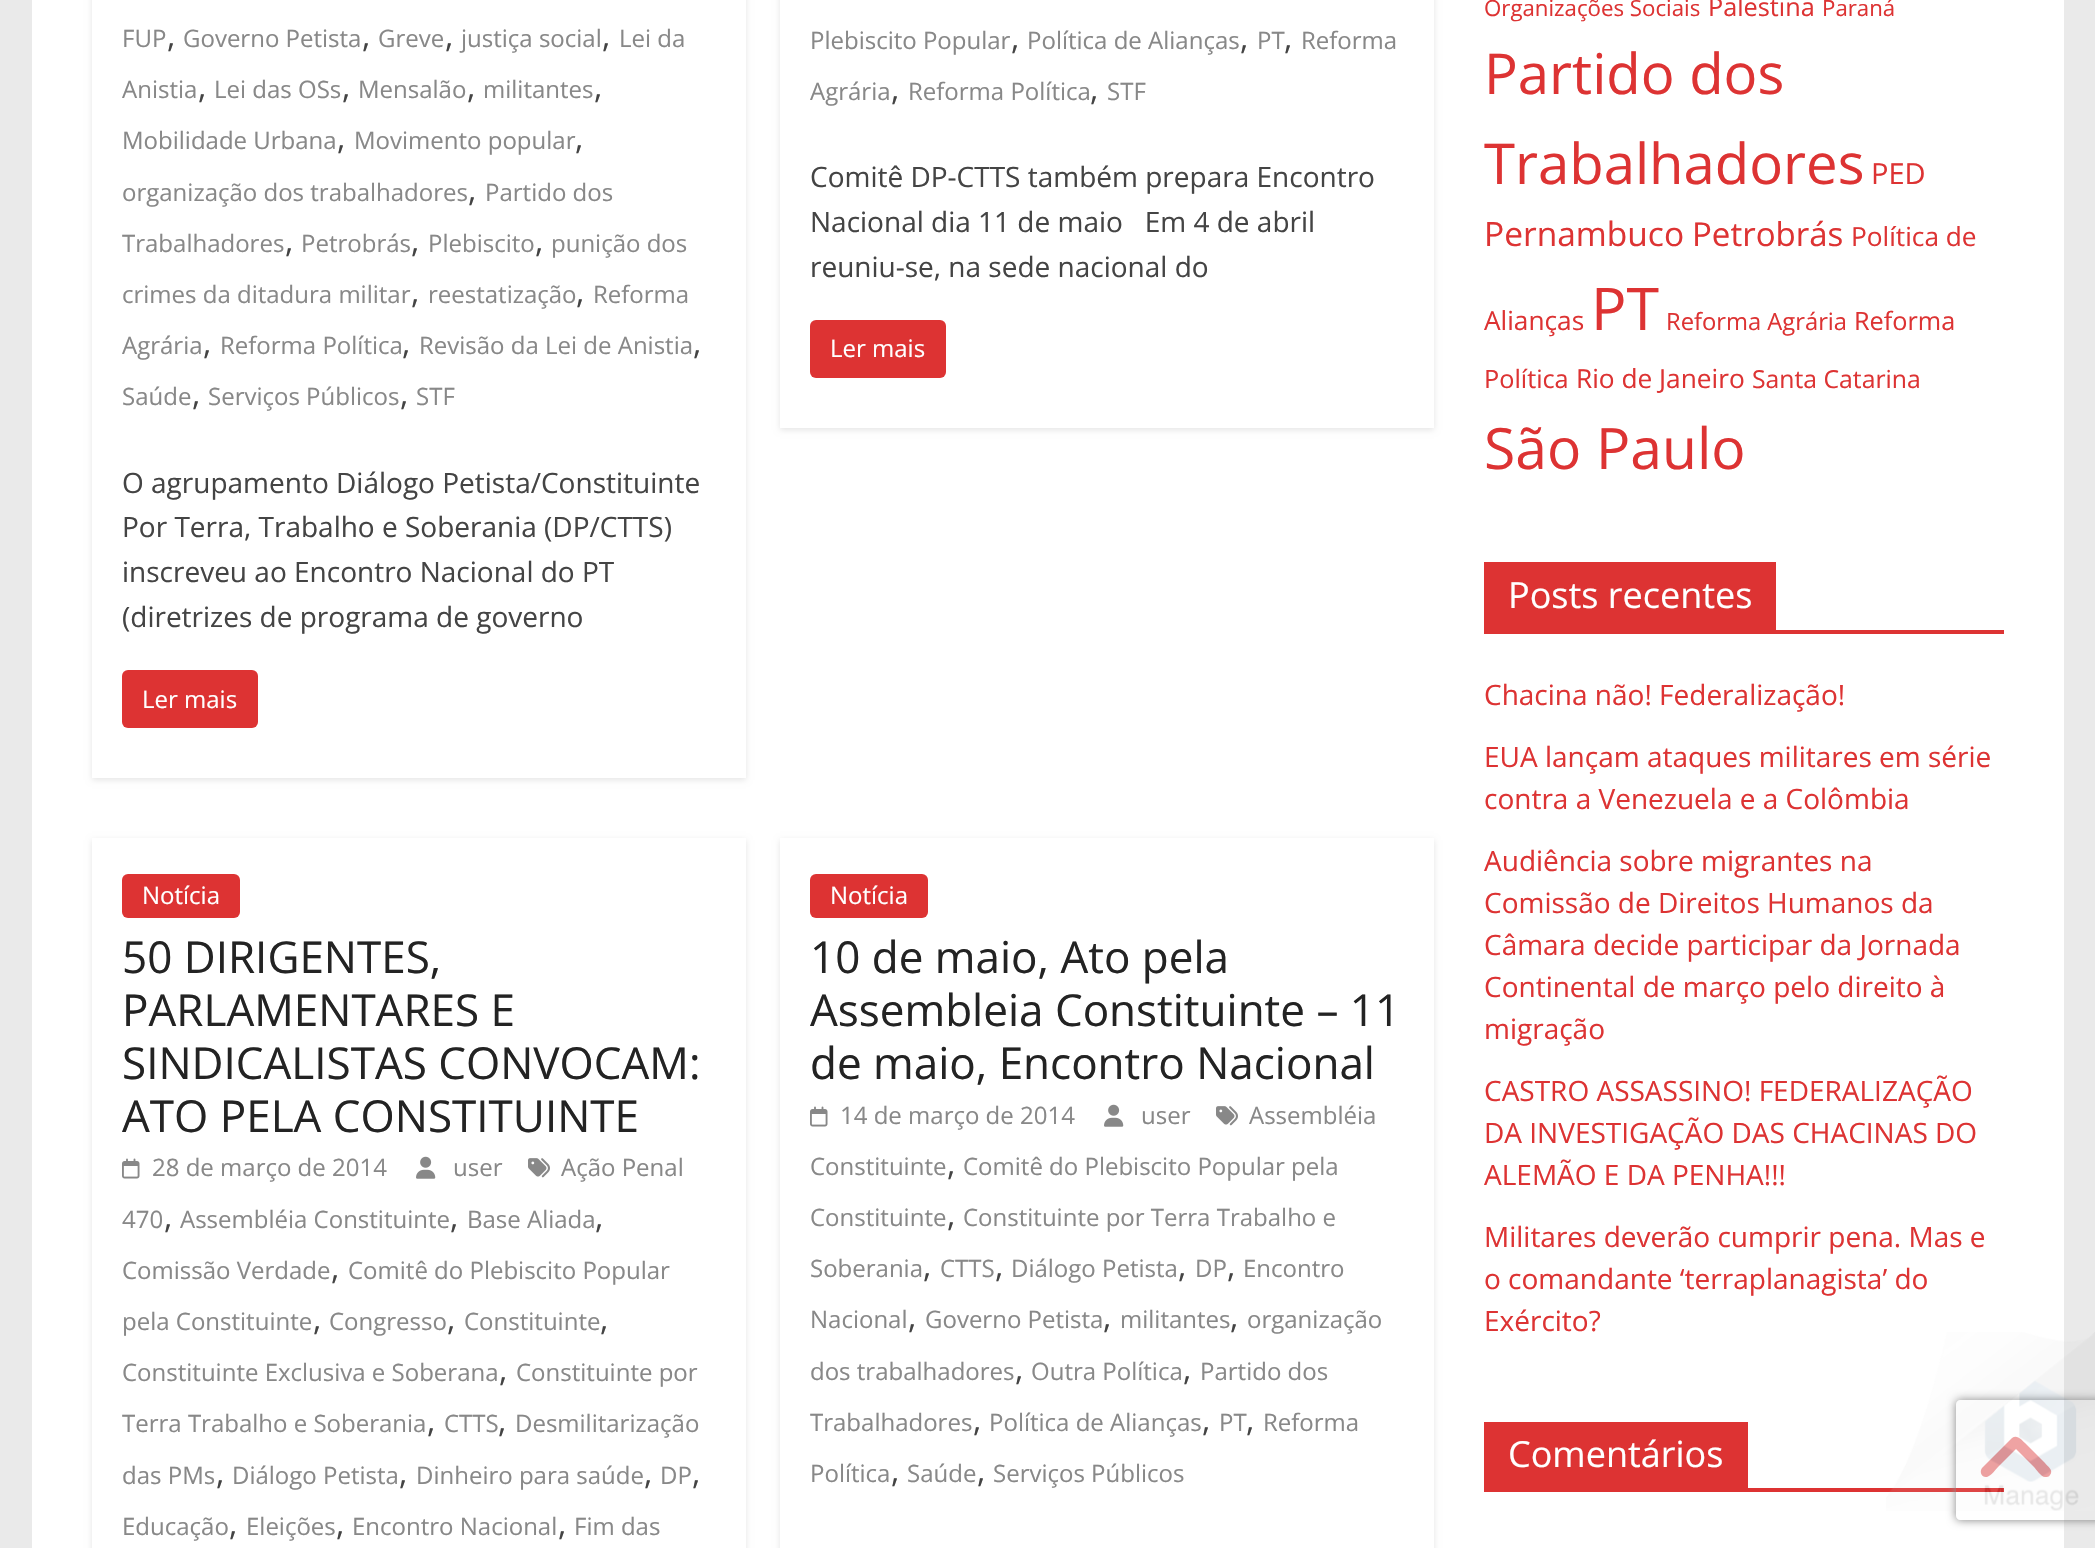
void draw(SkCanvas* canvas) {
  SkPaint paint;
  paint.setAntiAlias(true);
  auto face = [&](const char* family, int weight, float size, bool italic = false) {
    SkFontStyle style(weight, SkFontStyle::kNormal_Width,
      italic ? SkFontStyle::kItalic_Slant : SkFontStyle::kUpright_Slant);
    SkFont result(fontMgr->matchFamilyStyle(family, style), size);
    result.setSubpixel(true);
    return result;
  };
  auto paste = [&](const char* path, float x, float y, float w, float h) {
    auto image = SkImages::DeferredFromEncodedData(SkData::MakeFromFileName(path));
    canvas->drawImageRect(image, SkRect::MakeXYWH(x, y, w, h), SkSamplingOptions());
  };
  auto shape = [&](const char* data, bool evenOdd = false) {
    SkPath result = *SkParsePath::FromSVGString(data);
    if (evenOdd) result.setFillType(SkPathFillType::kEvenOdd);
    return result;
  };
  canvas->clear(0xffeaeaea);
  paint.setColor(0xffffffff);
  canvas->drawRect(SkRect::MakeXYWH(32, 0, 2032, 1548), paint);
  canvas->save();
  canvas->clipPath(shape("M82 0H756V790H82ZM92-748H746V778H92Z", true), true);
  paint.setColor(0x1a000000);
  paint.setMaskFilter(SkMaskFilter::MakeBlur(kNormal_SkBlurStyle, 3));
  canvas->drawRect(SkRect::MakeXYWH(92, -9, 654, 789), paint);
  paint.setMaskFilter(nullptr);
  canvas->restore();
  paint.setColor(0xffdd3333);
  canvas->drawRoundRect(SkRect::MakeXYWH(122, 670, 136, 58), 6, 6, paint);
  canvas->save();
  canvas->clipPath(shape("M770 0H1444V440H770ZM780-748H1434V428H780Z", true), true);
  paint.setColor(0x1a000000);
  paint.setMaskFilter(SkMaskFilter::MakeBlur(kNormal_SkBlurStyle, 3));
  canvas->drawRect(SkRect::MakeXYWH(780, -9, 654, 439), paint);
  paint.setMaskFilter(nullptr);
  canvas->restore();
  paint.setColor(0xffdd3333);
  canvas->drawRoundRect(SkRect::MakeXYWH(810, 320, 136, 58), 6, 6, paint);
  canvas->save();
  canvas->clipPath(shape("M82 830H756V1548H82ZM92 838H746V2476H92Z", true), true);
  paint.setColor(0x1a000000);
  paint.setMaskFilter(SkMaskFilter::MakeBlur(kNormal_SkBlurStyle, 3));
  canvas->drawRect(SkRect::MakeXYWH(92, 840, 654, 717), paint);
  paint.setMaskFilter(nullptr);
  canvas->restore();
  paint.setColor(0xffdd3333);
  canvas->drawRoundRect(SkRect::MakeXYWH(122, 874, 118, 44), 6, 6, paint);
  paste("img/1.png", 528, 1158, 22, 20);
  paste("img/2.png", 122, 1158, 18, 21);
  paste("img/3.png", 416, 1156, 20, 23);
  canvas->save();
  canvas->clipPath(shape("M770 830H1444V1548H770ZM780 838H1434V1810H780Z", true), true);
  paint.setColor(0x1a000000);
  paint.setMaskFilter(SkMaskFilter::MakeBlur(kNormal_SkBlurStyle, 3));
  canvas->drawRect(SkRect::MakeXYWH(780, 840, 654, 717), paint);
  paint.setMaskFilter(nullptr);
  canvas->restore();
  paint.setColor(0xffdd3333);
  canvas->drawRoundRect(SkRect::MakeXYWH(810, 874, 118, 44), 6, 6, paint);
  paste("img/1.png", 1216, 1106, 22, 20);
  paste("img/2.png", 810, 1106, 18, 21);
  paste("img/3.png", 1104, 1104, 20, 23);
  {
    const struct { float x, y, w, h; SkColor color; } items[] = {
      {1484, 630, 520, 4, 0xffdd3333},
      {1484, 562, 292, 68, 0xffdd3333},
      {1484, 1488, 520, 4, 0xffdd3333},
      {1484, 1422, 264, 66, 0xffdd3333},
    };
    for (auto [x, y, w, h, color] : items) {
      paint.setColor(color);
      canvas->drawRect(SkRect::MakeXYWH(x, y, w, h), paint);
    }
  }
  canvas->save();
  canvas->clipPath(shape("M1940 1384H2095V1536H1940ZM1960 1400H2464C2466 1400 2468 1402 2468 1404V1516C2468 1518 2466 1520 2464 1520H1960C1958 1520 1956 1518 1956 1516V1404C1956 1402 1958 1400 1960 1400Z", true), true);
  paint.setColor(0xff808080);
  paint.setMaskFilter(SkMaskFilter::MakeBlur(kNormal_SkBlurStyle, 5));
  canvas->drawRoundRect(SkRect::MakeXYWH(1956, 1400, 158, 120), 4, 4, paint);
  paint.setMaskFilter(nullptr);
  canvas->restore();
  paint.setColor(0xffee9999);
  canvas->drawPath(shape("M2012 1438C2017 1434 2022 1440 2025 1443L2045 1463C2047 1466 2054 1470 2050 1475C2049 1477 2047 1477 2045 1477C2041 1477 2036 1469 2034 1467L2016 1449L1998 1467C1996 1469 1991 1476 1987 1477C1982 1478 1979 1472 1982 1468Z"), paint);
  paste("img/4.png", 1886, 1332, 209, 179);
  auto f0 = face("Open Sans", 400, 24);
  paint.setColor(0xff888888);
  canvas->drawString("FUP", 122, 47, f0, paint);
  auto f1 = face("Open Sans", 400, 32);
  paint.setColor(0xff444444);
  canvas->drawString(",", 167, 47, f1, paint);
  paint.setColor(0xff888888);
  canvas->drawString("Governo Petista", 183, 47, f0, paint);
  paint.setColor(0xff444444);
  canvas->drawString(",", 362, 47, f1, paint);
  paint.setColor(0xff888888);
  canvas->drawString("Greve", 378, 47, f0, paint);
  paint.setColor(0xff444444);
  canvas->drawString(",", 445, 47, f1, paint);
  paint.setColor(0xff888888);
  canvas->drawString("justiça social", 461, 47, f0, paint);
  paint.setColor(0xff444444);
  canvas->drawString(",", 602, 47, f1, paint);
  paint.setColor(0xff888888);
  canvas->drawString("Lei da", 619, 47, f0, paint);
  canvas->drawString("Anistia", 122, 98, f0, paint);
  paint.setColor(0xff444444);
  canvas->drawString(",", 198, 98, f1, paint);
  paint.setColor(0xff888888);
  canvas->drawString("Lei das OSs", 214, 98, f0, paint);
  paint.setColor(0xff444444);
  canvas->drawString(",", 342, 98, f1, paint);
  paint.setColor(0xff888888);
  canvas->drawString("Mensalão", 358, 98, f0, paint);
  paint.setColor(0xff444444);
  canvas->drawString(",", 467, 98, f1, paint);
  paint.setColor(0xff888888);
  canvas->drawString("militantes", 483, 98, f0, paint);
  paint.setColor(0xff444444);
  canvas->drawString(",", 594, 98, f1, paint);
  paint.setColor(0xff888888);
  canvas->drawString("Mobilidade Urbana", 122, 149, f0, paint);
  paint.setColor(0xff444444);
  canvas->drawString(",", 337, 149, f1, paint);
  paint.setColor(0xff888888);
  canvas->drawString("Movimento popular", 354, 149, f0, paint);
  paint.setColor(0xff444444);
  canvas->drawString(",", 575, 149, f1, paint);
  paint.setColor(0xff888888);
  canvas->drawString("organização dos trabalhadores", 122, 201, f0, paint);
  paint.setColor(0xff444444);
  canvas->drawString(",", 468, 201, f1, paint);
  paint.setColor(0xff888888);
  canvas->drawString("Partido dos", 485, 201, f0, paint);
  canvas->drawString("Trabalhadores", 122, 252, f0, paint);
  paint.setColor(0xff444444);
  canvas->drawString(",", 285, 252, f1, paint);
  paint.setColor(0xff888888);
  canvas->drawString("Petrobrás", 301, 252, f0, paint);
  paint.setColor(0xff444444);
  canvas->drawString(",", 411, 252, f1, paint);
  paint.setColor(0xff888888);
  canvas->drawString("Plebiscito", 428, 252, f0, paint);
  paint.setColor(0xff444444);
  canvas->drawString(",", 535, 252, f1, paint);
  paint.setColor(0xff888888);
  canvas->drawString("punição dos", 551, 252, f0, paint);
  canvas->drawString("crimes da ditadura militar", 122, 303, f0, paint);
  paint.setColor(0xff444444);
  canvas->drawString(",", 411, 303, f1, paint);
  paint.setColor(0xff888888);
  canvas->drawString("reestatização", 428, 303, f0, paint);
  paint.setColor(0xff444444);
  canvas->drawString(",", 576, 303, f1, paint);
  paint.setColor(0xff888888);
  canvas->drawString("Reforma", 593, 303, f0, paint);
  canvas->drawString("Agrária", 122, 354, f0, paint);
  paint.setColor(0xff444444);
  canvas->drawString(",", 203, 354, f1, paint);
  paint.setColor(0xff888888);
  canvas->drawString("Reforma Política", 220, 354, f0, paint);
  paint.setColor(0xff444444);
  canvas->drawString(",", 402, 354, f1, paint);
  paint.setColor(0xff888888);
  canvas->drawString("Revisão da Lei de Anistia", 419, 354, f0, paint);
  paint.setColor(0xff444444);
  canvas->drawString(",", 693, 354, f1, paint);
  paint.setColor(0xff888888);
  canvas->drawString("Saúde", 122, 405, f0, paint);
  paint.setColor(0xff444444);
  canvas->drawString(",", 192, 405, f1, paint);
  paint.setColor(0xff888888);
  canvas->drawString("Serviços Públicos", 208, 405, f0, paint);
  paint.setColor(0xff444444);
  canvas->drawString(",", 400, 405, f1, paint);
  paint.setColor(0xff888888);
  canvas->drawString("STF", 416, 405, f0, paint);
  auto f2 = face("Open Sans", 400, 28);
  paint.setColor(0xff444444);
  {
    const struct { const char* s; float x, y; } items[] = {
      {"O agrupamento Diálogo Petista/Constituinte", 122, 493},
      {"Por Terra, Trabalho e Soberania (DP/CTTS)", 122, 537},
      {"inscreveu ao Encontro Nacional do PT", 122, 582},
      {"(diretrizes de programa de governo", 122, 627},
    };
    for (auto [s, x, y] : items) {
      canvas->drawString(s, x, y, f2, paint);
    }
  }
  paint.setColor(0xffffffff);
  canvas->drawString("Ler mais", 142, 708, f0, paint);
  paint.setColor(0xff888888);
  canvas->drawString("Plebiscito Popular", 810, 49, f0, paint);
  paint.setColor(0xff444444);
  canvas->drawString(",", 1011, 49, f1, paint);
  paint.setColor(0xff888888);
  canvas->drawString("Política de Alianças", 1027, 49, f0, paint);
  paint.setColor(0xff444444);
  canvas->drawString(",", 1240, 49, f1, paint);
  paint.setColor(0xff888888);
  canvas->drawString("PT", 1257, 49, f0, paint);
  paint.setColor(0xff444444);
  canvas->drawString(",", 1284, 49, f1, paint);
  paint.setColor(0xff888888);
  canvas->drawString("Reforma", 1301, 49, f0, paint);
  canvas->drawString("Agrária", 810, 100, f0, paint);
  paint.setColor(0xff444444);
  canvas->drawString(",", 891, 100, f1, paint);
  paint.setColor(0xff888888);
  canvas->drawString("Reforma Política", 908, 100, f0, paint);
  paint.setColor(0xff444444);
  canvas->drawString(",", 1090, 100, f1, paint);
  paint.setColor(0xff888888);
  canvas->drawString("STF", 1107, 100, f0, paint);
  paint.setColor(0xff444444);
  {
    const struct { const char* s; float x, y; } items[] = {
      {"Comitê DP-CTTS também prepara Encontro", 810, 187},
      {"Nacional dia 11 de maio   Em 4 de abril", 810, 232},
      {"reuniu-se, na sede nacional do", 810, 277},
    };
    for (auto [s, x, y] : items) {
      canvas->drawString(s, x, y, f2, paint);
    }
  }
  paint.setColor(0xffffffff);
  canvas->drawString("Ler mais", 830, 357, f0, paint);
  canvas->drawString("Notícia", 142, 904, f0, paint);
  auto f3 = face("Open Sans", 400, 44);
  paint.setColor(0xff232323);
  {
    const struct { const char* s; float x, y; } items[] = {
      {"50 DIRIGENTES,", 122, 973},
      {"PARLAMENTARES E", 122, 1026},
      {"SINDICALISTAS CONVOCAM:", 122, 1079},
      {"ATO PELA CONSTITUINTE", 122, 1132},
    };
    for (auto [s, x, y] : items) {
      canvas->drawString(s, x, y, f3, paint);
    }
  }
  paint.setColor(0xff888888);
  canvas->drawString("Ação Penal", 561, 1176, f0, paint);
  canvas->drawString("470", 122, 1228, f0, paint);
  paint.setColor(0xff444444);
  canvas->drawString(",", 164, 1228, f1, paint);
  paint.setColor(0xff888888);
  canvas->drawString("Assembléia Constituinte", 180, 1228, f0, paint);
  paint.setColor(0xff444444);
  canvas->drawString(",", 450, 1228, f1, paint);
  paint.setColor(0xff888888);
  canvas->drawString("Base Aliada", 467, 1228, f0, paint);
  paint.setColor(0xff444444);
  canvas->drawString(",", 595, 1228, f1, paint);
  paint.setColor(0xff888888);
  canvas->drawString("Comissão Verdade", 122, 1279, f0, paint);
  paint.setColor(0xff444444);
  canvas->drawString(",", 331, 1279, f1, paint);
  paint.setColor(0xff888888);
  canvas->drawString("Comitê do Plebiscito Popular", 348, 1279, f0, paint);
  canvas->drawString("pela Constituinte", 122, 1330, f0, paint);
  paint.setColor(0xff444444);
  canvas->drawString(",", 313, 1330, f1, paint);
  paint.setColor(0xff888888);
  canvas->drawString("Congresso", 329, 1330, f0, paint);
  paint.setColor(0xff444444);
  canvas->drawString(",", 447, 1330, f1, paint);
  paint.setColor(0xff888888);
  canvas->drawString("Constituinte", 464, 1330, f0, paint);
  paint.setColor(0xff444444);
  canvas->drawString(",", 600, 1330, f1, paint);
  paint.setColor(0xff888888);
  canvas->drawString("Constituinte Exclusiva e Soberana", 122, 1381, f0, paint);
  paint.setColor(0xff444444);
  canvas->drawString(",", 499, 1381, f1, paint);
  paint.setColor(0xff888888);
  canvas->drawString("Constituinte por", 516, 1381, f0, paint);
  canvas->drawString("Terra Trabalho e Soberania", 122, 1432, f0, paint);
  paint.setColor(0xff444444);
  canvas->drawString(",", 427, 1432, f1, paint);
  paint.setColor(0xff888888);
  canvas->drawString("CTTS", 444, 1432, f0, paint);
  paint.setColor(0xff444444);
  canvas->drawString(",", 498, 1432, f1, paint);
  paint.setColor(0xff888888);
  canvas->drawString("Desmilitarização", 515, 1432, f0, paint);
  canvas->drawString("das PMs", 122, 1484, f0, paint);
  paint.setColor(0xff444444);
  canvas->drawString(",", 216, 1484, f1, paint);
  paint.setColor(0xff888888);
  canvas->drawString("Diálogo Petista", 232, 1484, f0, paint);
  paint.setColor(0xff444444);
  canvas->drawString(",", 399, 1484, f1, paint);
  paint.setColor(0xff888888);
  canvas->drawString("Dinheiro para saúde", 416, 1484, f0, paint);
  paint.setColor(0xff444444);
  canvas->drawString(",", 644, 1484, f1, paint);
  paint.setColor(0xff888888);
  canvas->drawString("DP", 660, 1484, f0, paint);
  paint.setColor(0xff444444);
  canvas->drawString(",", 692, 1484, f1, paint);
  paint.setColor(0xff888888);
  canvas->drawString("Educação", 122, 1535, f0, paint);
  paint.setColor(0xff444444);
  canvas->drawString(",", 229, 1535, f1, paint);
  paint.setColor(0xff888888);
  canvas->drawString("Eleições", 246, 1535, f0, paint);
  paint.setColor(0xff444444);
  canvas->drawString(",", 336, 1535, f1, paint);
  paint.setColor(0xff888888);
  canvas->drawString("Encontro Nacional", 352, 1535, f0, paint);
  paint.setColor(0xff444444);
  canvas->drawString(",", 558, 1535, f1, paint);
  paint.setColor(0xff888888);
  {
    const struct { const char* s; float x, y; } items[] = {
      {"Fim das", 574, 1535},
      {"28 de março de 2014", 152, 1176},
      {"user", 453, 1176},
    };
    for (auto [s, x, y] : items) {
      canvas->drawString(s, x, y, f0, paint);
    }
  }
  paint.setColor(0xffffffff);
  canvas->drawString("Notícia", 830, 904, f0, paint);
  paint.setColor(0xff232323);
  {
    const struct { const char* s; float x, y; } items[] = {
      {"10 de maio, Ato pela", 810, 973},
      {"Assembleia Constituinte – 11", 810, 1026},
      {"de maio, Encontro Nacional", 810, 1079},
    };
    for (auto [s, x, y] : items) {
      canvas->drawString(s, x, y, f3, paint);
    }
  }
  paint.setColor(0xff888888);
  canvas->drawString("Assembléia", 1249, 1124, f0, paint);
  canvas->drawString("Constituinte", 810, 1175, f0, paint);
  paint.setColor(0xff444444);
  canvas->drawString(",", 947, 1175, f1, paint);
  paint.setColor(0xff888888);
  canvas->drawString("Comitê do Plebiscito Popular pela", 963, 1175, f0, paint);
  canvas->drawString("Constituinte", 810, 1226, f0, paint);
  paint.setColor(0xff444444);
  canvas->drawString(",", 947, 1226, f1, paint);
  paint.setColor(0xff888888);
  canvas->drawString("Constituinte por Terra Trabalho e", 963, 1226, f0, paint);
  canvas->drawString("Soberania", 810, 1277, f0, paint);
  paint.setColor(0xff444444);
  canvas->drawString(",", 923, 1277, f1, paint);
  paint.setColor(0xff888888);
  canvas->drawString("CTTS", 940, 1277, f0, paint);
  paint.setColor(0xff444444);
  canvas->drawString(",", 995, 1277, f1, paint);
  paint.setColor(0xff888888);
  canvas->drawString("Diálogo Petista", 1011, 1277, f0, paint);
  paint.setColor(0xff444444);
  canvas->drawString(",", 1178, 1277, f1, paint);
  paint.setColor(0xff888888);
  canvas->drawString("DP", 1195, 1277, f0, paint);
  paint.setColor(0xff444444);
  canvas->drawString(",", 1227, 1277, f1, paint);
  paint.setColor(0xff888888);
  canvas->drawString("Encontro", 1243, 1277, f0, paint);
  canvas->drawString("Nacional", 810, 1328, f0, paint);
  paint.setColor(0xff444444);
  canvas->drawString(",", 908, 1328, f1, paint);
  paint.setColor(0xff888888);
  canvas->drawString("Governo Petista", 925, 1328, f0, paint);
  paint.setColor(0xff444444);
  canvas->drawString(",", 1103, 1328, f1, paint);
  paint.setColor(0xff888888);
  canvas->drawString("militantes", 1120, 1328, f0, paint);
  paint.setColor(0xff444444);
  canvas->drawString(",", 1230, 1328, f1, paint);
  paint.setColor(0xff888888);
  canvas->drawString("organização", 1247, 1328, f0, paint);
  canvas->drawString("dos trabalhadores", 810, 1380, f0, paint);
  paint.setColor(0xff444444);
  canvas->drawString(",", 1015, 1380, f1, paint);
  paint.setColor(0xff888888);
  canvas->drawString("Outra Política", 1031, 1380, f0, paint);
  paint.setColor(0xff444444);
  canvas->drawString(",", 1183, 1380, f1, paint);
  paint.setColor(0xff888888);
  canvas->drawString("Partido dos", 1200, 1380, f0, paint);
  canvas->drawString("Trabalhadores", 810, 1431, f0, paint);
  paint.setColor(0xff444444);
  canvas->drawString(",", 973, 1431, f1, paint);
  paint.setColor(0xff888888);
  canvas->drawString("Política de Alianças", 989, 1431, f0, paint);
  paint.setColor(0xff444444);
  canvas->drawString(",", 1202, 1431, f1, paint);
  paint.setColor(0xff888888);
  canvas->drawString("PT", 1219, 1431, f0, paint);
  paint.setColor(0xff444444);
  canvas->drawString(",", 1246, 1431, f1, paint);
  paint.setColor(0xff888888);
  canvas->drawString("Reforma", 1263, 1431, f0, paint);
  canvas->drawString("Política", 810, 1482, f0, paint);
  paint.setColor(0xff444444);
  canvas->drawString(",", 891, 1482, f1, paint);
  paint.setColor(0xff888888);
  canvas->drawString("Saúde", 907, 1482, f0, paint);
  paint.setColor(0xff444444);
  canvas->drawString(",", 977, 1482, f1, paint);
  paint.setColor(0xff888888);
  {
    const struct { const char* s; float x, y; } items[] = {
      {"Serviços Públicos", 993, 1482},
      {"14 de março de 2014", 840, 1124},
      {"user", 1141, 1124},
    };
    for (auto [s, x, y] : items) {
      canvas->drawString(s, x, y, f0, paint);
    }
  }
  auto f4 = face("Open Sans", 400, 22.25f);
  paint.setColor(0xffdd3333);
  canvas->drawString("Organizações Sociais", 1484, 16, f4, paint);
  auto f5 = face("Open Sans", 400, 25.25f);
  canvas->drawString("Palestina", 1708, 16, f5, paint);
  canvas->drawString("Paraná", 1822, 16, f4, paint);
  auto f6 = face("Open Sans", 400, 56.25f);
  canvas->drawString("Partido dos", 1484, 94, f6, paint);
  canvas->drawString("Trabalhadores", 1484, 184, f6, paint);
  auto f7 = face("Open Sans", 400, 29);
  canvas->drawString("PED", 1871, 184, f7, paint);
  auto f8 = face("Open Sans", 400, 33.5f);
  canvas->drawString("Pernambuco", 1484, 246, f8, paint);
  auto f9 = face("Open Sans", 400, 33);
  canvas->drawString("Petrobrás", 1692, 246, f9, paint);
  auto f10 = face("Open Sans", 400, 26.25f);
  canvas->drawString("Política de", 1851, 246, f10, paint);
  canvas->drawString("Alianças", 1484, 330, f10, paint);
  auto f11 = face("Open Sans", 400, 59);
  canvas->drawString("PT", 1591, 330, f11, paint);
  auto f12 = face("Open Sans", 400, 23.75f);
  canvas->drawString("Reforma Agrária", 1666, 330, f12, paint);
  canvas->drawString("Reforma", 1854, 330, f5, paint);
  canvas->drawString("Política", 1484, 388, f5, paint);
  canvas->drawString("Rio de Janeiro", 1576, 388, f10, paint);
  auto f13 = face("Open Sans", 400, 24.75f);
  canvas->drawString("Santa Catarina", 1752, 388, f13, paint);
  auto f14 = face("Open Sans", 400, 57);
  canvas->drawString("São Paulo", 1484, 469, f14, paint);
  auto f15 = face("Open Sans", 400, 36);
  paint.setColor(0xffffffff);
  canvas->drawString("Posts recentes", 1508, 608, f15, paint);
  paint.setColor(0xffdd3333);
  {
    const struct { const char* s; float x, y; } items[] = {
      {"Chacina não! Federalização!", 1484, 705},
      {"EUA lançam ataques militares em série", 1484, 767},
      {"contra a Venezuela e a Colômbia", 1484, 809},
      {"Audiência sobre migrantes na", 1484, 871},
      {"Comissão de Direitos Humanos da", 1484, 913},
      {"Câmara decide participar da Jornada", 1484, 955},
      {"Continental de março pelo direito à", 1484, 997},
      {"migração", 1484, 1039},
      {"CASTRO ASSASSINO! FEDERALIZAÇÃO", 1484, 1101},
      {"DA INVESTIGAÇÃO DAS CHACINAS DO", 1484, 1143},
      {"ALEMÃO E DA PENHA!!!", 1484, 1185},
      {"Militares deverão cumprir pena. Mas e", 1484, 1247},
      {"o comandante ‘terraplanagista’ do", 1484, 1289},
      {"Exército?", 1484, 1331},
    };
    for (auto [s, x, y] : items) {
      canvas->drawString(s, x, y, f2, paint);
    }
  }
  paint.setColor(0xffffffff);
  canvas->drawString("Comentários", 1508, 1467, f15, paint);
}
